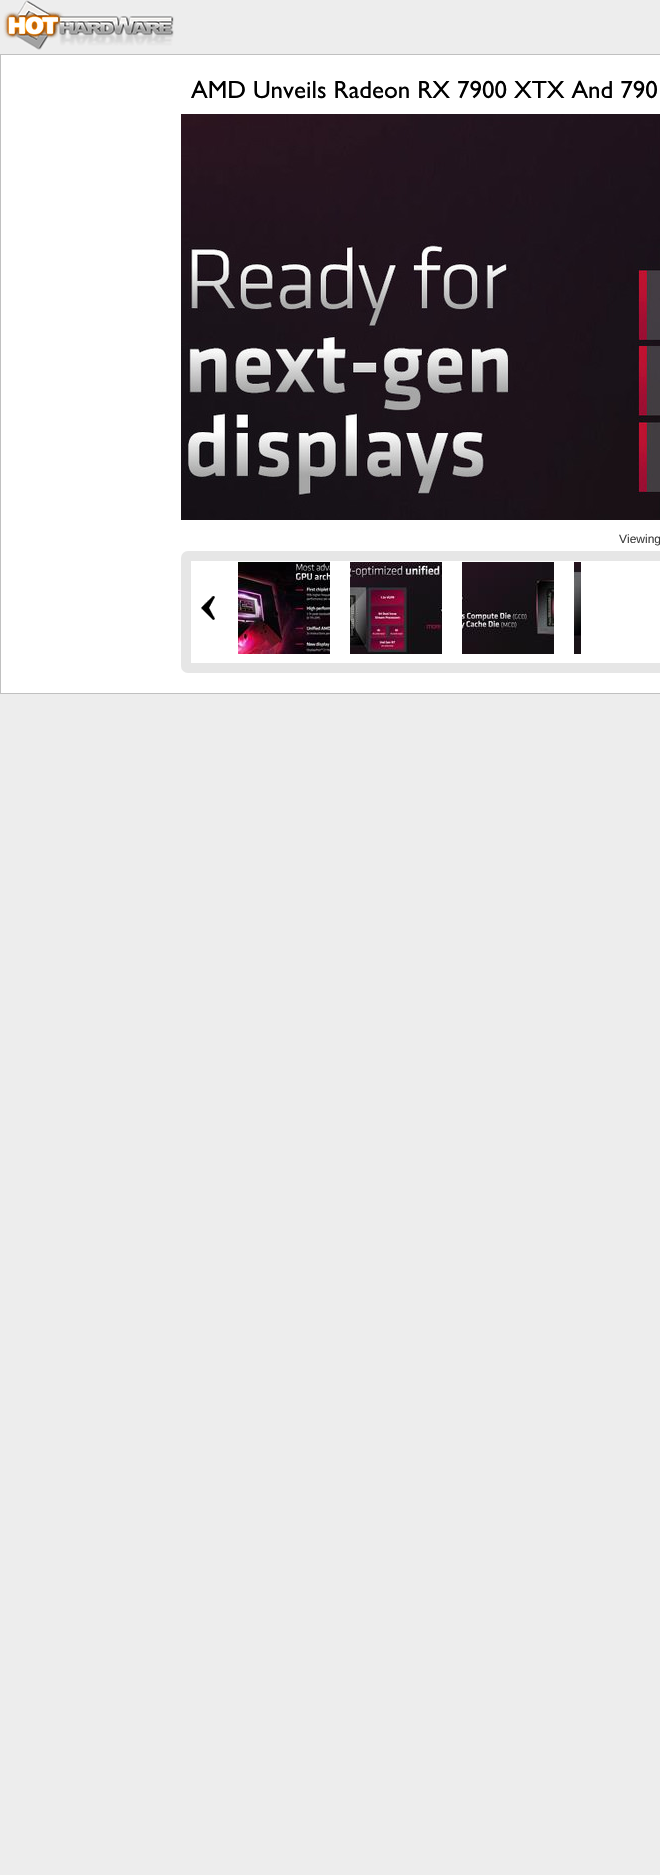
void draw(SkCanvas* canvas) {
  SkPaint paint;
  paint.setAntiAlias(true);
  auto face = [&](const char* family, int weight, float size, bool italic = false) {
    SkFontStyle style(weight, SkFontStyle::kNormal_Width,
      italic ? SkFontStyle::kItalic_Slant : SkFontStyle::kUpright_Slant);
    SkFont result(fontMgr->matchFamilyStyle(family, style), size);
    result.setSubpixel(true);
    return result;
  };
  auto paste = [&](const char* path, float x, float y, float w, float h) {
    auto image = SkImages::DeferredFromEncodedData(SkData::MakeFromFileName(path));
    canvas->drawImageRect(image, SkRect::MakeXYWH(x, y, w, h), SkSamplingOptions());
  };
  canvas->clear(0xffededed);
  paste("img/1.png", 3, 0, 171, 50);
  paint.setColor(0xffffffff);
  canvas->drawRect(SkRect::MakeXYWH(0.5f, 54.5f, 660, 639), paint);
  paint.setStroke(true);
  paint.setStrokeWidth(1);
  paint.setColor(0xffc0c0c0);
  canvas->drawRect(SkRect::MakeXYWH(0.5f, 54.5f, 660, 639), paint);
  paste("img/2.png", 181, 114, 479, 406);
  paint.setStroke(false);
  paint.setColor(0xffe6e6e6);
  canvas->drawRoundRect(SkRect::MakeXYWH(181, 551, 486, 122), 7, 7, paint);
  paint.setColor(0xffffffff);
  canvas->drawRect(SkRect::MakeXYWH(191, 561, 469, 102), paint);
  paste("img/3.png", 201, 596, 14, 24);
  paste("img/4.png", 238, 562, 92, 92);
  paste("img/5.png", 350, 562, 92, 92);
  paste("img/6.png", 462, 562, 92, 92);
  paste("img/7.png", 574, 562, 7, 92);
  auto f0 = face("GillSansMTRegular", 400, 25);
  paint.setColor(0xff000000);
  canvas->drawString("AMD Unveils Radeon RX 7900 XTX And 790", 191, 98, f0, paint);
  auto f1 = face("Liberation Sans", 400, 12);
  paint.setColor(0xff3f3f3f);
  canvas->drawString("Viewing", 619, 543, f1, paint);
}
